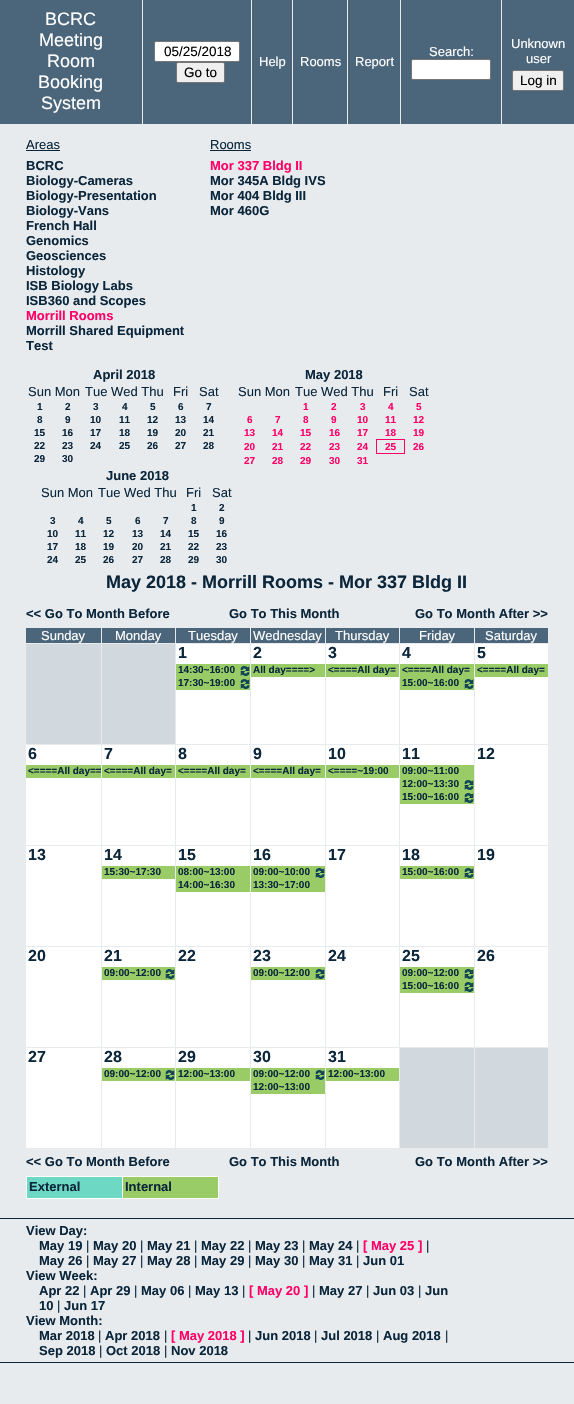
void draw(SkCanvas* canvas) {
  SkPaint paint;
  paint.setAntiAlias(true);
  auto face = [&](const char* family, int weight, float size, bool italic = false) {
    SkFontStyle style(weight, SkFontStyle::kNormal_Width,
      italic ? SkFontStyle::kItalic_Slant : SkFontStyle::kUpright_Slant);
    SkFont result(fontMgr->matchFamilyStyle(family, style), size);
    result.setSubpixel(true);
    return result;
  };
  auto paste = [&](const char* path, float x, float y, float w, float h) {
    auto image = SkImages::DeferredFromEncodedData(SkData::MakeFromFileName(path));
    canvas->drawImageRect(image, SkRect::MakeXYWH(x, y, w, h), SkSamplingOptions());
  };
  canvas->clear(0xffe7ebee);
  paint.setColor(0xff4b667b);
  canvas->drawRect(SkRect::MakeXYWH(0, 0, 574, 124), paint);
  paint.setColor(0xffe7ebee);
  canvas->drawRect(SkRect::MakeXYWH(142, 0, 1, 124), paint);
  paint.setColor(0xffffffff);
  canvas->drawRoundRect(SkRect::MakeXYWH(154.5f, 41.5f, 85, 20), 1.5f, 1.5f, paint);
  paint.setStroke(true);
  paint.setStrokeWidth(1);
  paint.setColor(0xff767676);
  canvas->drawRoundRect(SkRect::MakeXYWH(154.5f, 41.5f, 85, 20), 1.5f, 1.5f, paint);
  paint.setStroke(false);
  paint.setColor(0xffefefef);
  canvas->drawRoundRect(SkRect::MakeXYWH(176.5f, 62.5f, 48, 20), 1.5f, 1.5f, paint);
  paint.setStroke(true);
  paint.setColor(0xff767676);
  canvas->drawRoundRect(SkRect::MakeXYWH(176.5f, 62.5f, 48, 20), 1.5f, 1.5f, paint);
  paint.setStroke(false);
  paint.setColor(0xffe7ebee);
  canvas->drawRect(SkRect::MakeXYWH(400, 0, 1, 124), paint);
  paint.setColor(0xffffffff);
  canvas->drawRoundRect(SkRect::MakeXYWH(411.5f, 59.5f, 79, 20), 1.5f, 1.5f, paint);
  paint.setStroke(true);
  paint.setColor(0xff767676);
  canvas->drawRoundRect(SkRect::MakeXYWH(411.5f, 59.5f, 79, 20), 1.5f, 1.5f, paint);
  paint.setStroke(false);
  paint.setColor(0xffe7ebee);
  canvas->drawRect(SkRect::MakeXYWH(501, 0, 1, 124), paint);
  paint.setColor(0xffefefef);
  canvas->drawRoundRect(SkRect::MakeXYWH(512.5f, 70.5f, 51, 20), 1.5f, 1.5f, paint);
  paint.setStroke(true);
  paint.setColor(0xff767676);
  canvas->drawRoundRect(SkRect::MakeXYWH(512.5f, 70.5f, 51, 20), 1.5f, 1.5f, paint);
  paint.setStroke(false);
  {
    const struct { float x, y, w, h; SkColor color; } items[] = {
      {251, 0, 1, 124, 0xffe7ebee},
      {292, 0, 1, 124, 0xffe7ebee},
      {347, 0, 1, 124, 0xffe7ebee},
      {26, 150, 34, 1, 0xff0b263b},
      {210, 150, 41, 1, 0xff0b263b},
      {376, 439, 29, 1, 0xffff0066},
      {404, 439, 1, 15, 0xffff0066},
      {376, 453, 29, 1, 0xffff0066},
      {376, 439, 1, 15, 0xffff0066},
      {26, 628, 75, 15, 0xff4b667b},
      {102, 628, 73, 15, 0xff4b667b},
      {176, 628, 74, 15, 0xff4b667b},
      {251, 628, 74, 15, 0xff4b667b},
      {326, 628, 73, 15, 0xff4b667b},
      {400, 628, 74, 15, 0xff4b667b},
      {475, 628, 73, 15, 0xff4b667b},
      {26, 644, 75, 100, 0xffd1d9de},
      {102, 644, 73, 100, 0xffd1d9de},
      {176, 644, 74, 100, 0xffffffff},
      {176, 664, 74, 26, 0xff99cc66},
    };
    for (auto [x, y, w, h, color] : items) {
      paint.setColor(color);
      canvas->drawRect(SkRect::MakeXYWH(x, y, w, h), paint);
    }
  }
  paste("img/1.png", 240, 666, 10, 10);
  paste("img/1.png", 240, 679, 10, 10);
  {
    const struct { float x, y, w, h; SkColor color; } items[] = {
      {251, 644, 74, 100, 0xffffffff},
      {251, 664, 74, 13, 0xff99cc66},
      {326, 644, 73, 100, 0xffffffff},
      {326, 664, 73, 13, 0xff99cc66},
      {400, 644, 74, 100, 0xffffffff},
      {400, 664, 74, 26, 0xff99cc66},
    };
    for (auto [x, y, w, h, color] : items) {
      paint.setColor(color);
      canvas->drawRect(SkRect::MakeXYWH(x, y, w, h), paint);
    }
  }
  paste("img/1.png", 464, 679, 10, 10);
  {
    const struct { float x, y, w, h; SkColor color; } items[] = {
      {475, 644, 73, 100, 0xffffffff},
      {475, 664, 73, 13, 0xff99cc66},
      {26, 745, 75, 100, 0xffffffff},
      {26, 765, 75, 13, 0xff99cc66},
      {102, 745, 73, 100, 0xffffffff},
      {102, 765, 73, 13, 0xff99cc66},
      {176, 745, 74, 100, 0xffffffff},
      {176, 765, 74, 13, 0xff99cc66},
      {251, 745, 74, 100, 0xffffffff},
      {251, 765, 74, 13, 0xff99cc66},
      {326, 745, 73, 100, 0xffffffff},
      {326, 765, 73, 13, 0xff99cc66},
      {400, 745, 74, 100, 0xffffffff},
      {400, 765, 74, 39, 0xff99cc66},
    };
    for (auto [x, y, w, h, color] : items) {
      paint.setColor(color);
      canvas->drawRect(SkRect::MakeXYWH(x, y, w, h), paint);
    }
  }
  paste("img/1.png", 464, 780, 10, 10);
  paste("img/1.png", 464, 793, 10, 10);
  {
    const struct { float x, y, w, h; SkColor color; } items[] = {
      {475, 745, 73, 100, 0xffffffff},
      {26, 846, 75, 100, 0xffffffff},
      {102, 846, 73, 100, 0xffffffff},
      {102, 866, 73, 13, 0xff99cc66},
      {176, 846, 74, 100, 0xffffffff},
      {176, 866, 74, 26, 0xff99cc66},
      {251, 846, 74, 100, 0xffffffff},
      {251, 866, 74, 26, 0xff99cc66},
    };
    for (auto [x, y, w, h, color] : items) {
      paint.setColor(color);
      canvas->drawRect(SkRect::MakeXYWH(x, y, w, h), paint);
    }
  }
  paste("img/1.png", 315, 868, 10, 10);
  {
    const struct { float x, y, w, h; SkColor color; } items[] = {
      {326, 846, 73, 100, 0xffffffff},
      {400, 846, 74, 100, 0xffffffff},
      {400, 866, 74, 13, 0xff99cc66},
    };
    for (auto [x, y, w, h, color] : items) {
      paint.setColor(color);
      canvas->drawRect(SkRect::MakeXYWH(x, y, w, h), paint);
    }
  }
  paste("img/1.png", 464, 868, 10, 10);
  {
    const struct { float x, y, w, h; SkColor color; } items[] = {
      {475, 846, 73, 100, 0xffffffff},
      {26, 947, 75, 100, 0xffffffff},
      {102, 947, 73, 100, 0xffffffff},
      {102, 967, 73, 13, 0xff99cc66},
    };
    for (auto [x, y, w, h, color] : items) {
      paint.setColor(color);
      canvas->drawRect(SkRect::MakeXYWH(x, y, w, h), paint);
    }
  }
  paste("img/1.png", 165, 969, 10, 10);
  {
    const struct { float x, y, w, h; SkColor color; } items[] = {
      {176, 947, 74, 100, 0xffffffff},
      {251, 947, 74, 100, 0xffffffff},
      {251, 967, 74, 13, 0xff99cc66},
    };
    for (auto [x, y, w, h, color] : items) {
      paint.setColor(color);
      canvas->drawRect(SkRect::MakeXYWH(x, y, w, h), paint);
    }
  }
  paste("img/1.png", 315, 969, 10, 10);
  {
    const struct { float x, y, w, h; SkColor color; } items[] = {
      {326, 947, 73, 100, 0xffffffff},
      {400, 947, 74, 100, 0xffffffff},
      {400, 967, 74, 26, 0xff99cc66},
    };
    for (auto [x, y, w, h, color] : items) {
      paint.setColor(color);
      canvas->drawRect(SkRect::MakeXYWH(x, y, w, h), paint);
    }
  }
  paste("img/1.png", 464, 969, 10, 10);
  paste("img/1.png", 464, 982, 10, 10);
  {
    const struct { float x, y, w, h; SkColor color; } items[] = {
      {475, 947, 73, 100, 0xffffffff},
      {26, 1048, 75, 100, 0xffffffff},
      {102, 1048, 73, 100, 0xffffffff},
      {102, 1068, 73, 13, 0xff99cc66},
    };
    for (auto [x, y, w, h, color] : items) {
      paint.setColor(color);
      canvas->drawRect(SkRect::MakeXYWH(x, y, w, h), paint);
    }
  }
  paste("img/1.png", 165, 1070, 10, 10);
  {
    const struct { float x, y, w, h; SkColor color; } items[] = {
      {176, 1048, 74, 100, 0xffffffff},
      {176, 1068, 74, 13, 0xff99cc66},
      {251, 1048, 74, 100, 0xffffffff},
      {251, 1068, 74, 26, 0xff99cc66},
    };
    for (auto [x, y, w, h, color] : items) {
      paint.setColor(color);
      canvas->drawRect(SkRect::MakeXYWH(x, y, w, h), paint);
    }
  }
  paste("img/1.png", 315, 1070, 10, 10);
  {
    const struct { float x, y, w, h; SkColor color; } items[] = {
      {326, 1048, 73, 100, 0xffffffff},
      {326, 1068, 73, 13, 0xff99cc66},
      {400, 1048, 74, 100, 0xffd1d9de},
      {475, 1048, 73, 100, 0xffd1d9de},
      {27, 1177, 95, 21, 0xff6dd9c4},
      {122, 1176, 97, 1, 0xffffffff},
      {218, 1176, 1, 23, 0xffffffff},
      {122, 1198, 97, 1, 0xffffffff},
      {122, 1176, 1, 23, 0xffffffff},
      {26, 1176, 97, 1, 0xffffffff},
      {26, 1198, 97, 1, 0xffffffff},
      {26, 1176, 1, 23, 0xffffffff},
      {123, 1177, 95, 21, 0xff99cc66},
      {0, 1218, 574, 1, 0xff0b263b},
      {0, 1362, 574, 1, 0xff0b263b},
    };
    for (auto [x, y, w, h, color] : items) {
      paint.setColor(color);
      canvas->drawRect(SkRect::MakeXYWH(x, y, w, h), paint);
    }
  }
  auto f0 = face("Liberation Sans", 400, 18);
  paint.setColor(0xffffffff);
  {
    const struct { const char* s; float x, y; } items[] = {
      {"BCRC", 45, 25},
      {"Meeting", 39, 46},
      {"Room", 47, 67},
      {"Booking", 38, 88},
      {"System", 41, 109},
    };
    for (auto [s, x, y] : items) {
      canvas->drawString(s, x, y, f0, paint);
    }
  }
  auto f1 = face("Liberation Sans", 400, 13.5f);
  paint.setColor(0xff000000);
  canvas->drawString("05/25/2018", 164, 56, f1, paint);
  canvas->drawString("Go to", 184, 77, f1, paint);
  auto f2 = face("Liberation Sans", 400, 13);
  paint.setColor(0xffffffff);
  {
    const struct { const char* s; float x, y; } items[] = {
      {"Search:", 429, 56},
      {"Unknown", 511, 48},
      {"user", 526, 63},
    };
    for (auto [s, x, y] : items) {
      canvas->drawString(s, x, y, f2, paint);
    }
  }
  paint.setColor(0xff000000);
  canvas->drawString("Log in", 520, 85, f1, paint);
  paint.setColor(0xffffffff);
  {
    const struct { const char* s; float x, y; } items[] = {
      {"Help", 259, 66},
      {"Rooms", 300, 66},
      {"Report", 355, 66},
    };
    for (auto [s, x, y] : items) {
      canvas->drawString(s, x, y, f2, paint);
    }
  }
  paint.setColor(0xff0b263b);
  canvas->drawString("Areas", 26, 149, f2, paint);
  auto f3 = face("Liberation Sans", 700, 13);
  {
    const struct { const char* s; float x, y; } items[] = {
      {"BCRC", 26, 170},
      {"Biology-Cameras", 26, 185},
      {"Biology-Presentation", 26, 200},
      {"Biology-Vans", 26, 215},
      {"French Hall", 26, 230},
      {"Genomics", 26, 245},
      {"Geosciences", 26, 260},
      {"Histology", 26, 275},
      {"ISB Biology Labs", 26, 290},
      {"ISB360 and Scopes", 26, 305},
    };
    for (auto [s, x, y] : items) {
      canvas->drawString(s, x, y, f3, paint);
    }
  }
  paint.setColor(0xffff0066);
  canvas->drawString("Morrill Rooms", 26, 320, f3, paint);
  paint.setColor(0xff0b263b);
  canvas->drawString("Morrill Shared Equipment", 26, 335, f3, paint);
  canvas->drawString("Test", 26, 350, f3, paint);
  canvas->drawString("Rooms", 210, 149, f2, paint);
  paint.setColor(0xffff0066);
  canvas->drawString("Mor 337 Bldg II", 210, 170, f3, paint);
  paint.setColor(0xff0b263b);
  {
    const struct { const char* s; float x, y; } items[] = {
      {"Mor 345A Bldg IVS", 210, 185},
      {"Mor 404 Bldg III", 210, 200},
      {"Mor 460G", 210, 215},
      {"April 2018", 93, 379},
    };
    for (auto [s, x, y] : items) {
      canvas->drawString(s, x, y, f3, paint);
    }
  }
  {
    const struct { const char* s; float x, y; } items[] = {
      {"Sun Mon", 28, 396},
      {"Tue Wed Thu", 85, 396},
      {"Fri", 173, 396},
      {"Sat", 199, 396},
    };
    for (auto [s, x, y] : items) {
      canvas->drawString(s, x, y, f2, paint);
    }
  }
  auto f4 = face("Liberation Sans", 700, 10);
  {
    const struct { const char* s; float x, y; } items[] = {
      {"1", 37, 410},
      {"2", 65, 410},
      {"3", 93, 410},
      {"4", 122, 410},
      {"5", 150, 410},
      {"6", 178, 410},
      {"7", 206, 410},
      {"8", 37, 423},
      {"9", 65, 423},
      {"10", 90, 423},
      {"11", 119, 423},
      {"12", 147, 423},
      {"13", 175, 423},
      {"14", 203, 423},
      {"15", 34, 436},
      {"16", 62, 436},
      {"17", 90, 436},
      {"18", 119, 436},
      {"19", 147, 436},
      {"20", 175, 436},
      {"21", 203, 436},
      {"22", 34, 449},
      {"23", 62, 449},
      {"24", 90, 449},
      {"25", 119, 449},
      {"26", 147, 449},
      {"27", 175, 449},
      {"28", 203, 449},
      {"29", 34, 462},
      {"30", 62, 462},
    };
    for (auto [s, x, y] : items) {
      canvas->drawString(s, x, y, f4, paint);
    }
  }
  canvas->drawString("May 2018", 305, 379, f3, paint);
  {
    const struct { const char* s; float x, y; } items[] = {
      {"Sun Mon", 238, 396},
      {"Tue Wed Thu", 295, 396},
      {"Fri", 383, 396},
      {"Sat", 409, 396},
    };
    for (auto [s, x, y] : items) {
      canvas->drawString(s, x, y, f2, paint);
    }
  }
  paint.setColor(0xffff0066);
  {
    const struct { const char* s; float x, y; } items[] = {
      {"1", 303, 410},
      {"2", 331, 410},
      {"3", 360, 410},
      {"4", 388, 410},
      {"5", 416, 410},
      {"6", 247, 423},
      {"7", 275, 423},
      {"8", 303, 423},
      {"9", 331, 423},
      {"10", 357, 423},
      {"11", 385, 423},
      {"12", 413, 423},
      {"13", 244, 436},
      {"14", 272, 436},
      {"15", 300, 436},
      {"16", 329, 436},
      {"17", 357, 436},
      {"18", 385, 436},
      {"19", 413, 436},
      {"20", 244, 450},
      {"21", 272, 450},
      {"22", 300, 450},
      {"23", 329, 450},
      {"24", 357, 450},
      {"25", 385, 450},
      {"26", 413, 450},
      {"27", 244, 464},
      {"28", 272, 464},
      {"29", 300, 464},
      {"30", 329, 464},
      {"31", 357, 464},
    };
    for (auto [s, x, y] : items) {
      canvas->drawString(s, x, y, f4, paint);
    }
  }
  paint.setColor(0xff0b263b);
  canvas->drawString("June 2018", 106, 480, f3, paint);
  {
    const struct { const char* s; float x, y; } items[] = {
      {"Sun Mon", 41, 497},
      {"Tue Wed Thu", 98, 497},
      {"Fri", 186, 497},
      {"Sat", 212, 497},
    };
    for (auto [s, x, y] : items) {
      canvas->drawString(s, x, y, f2, paint);
    }
  }
  {
    const struct { const char* s; float x, y; } items[] = {
      {"1", 191, 511},
      {"2", 219, 511},
      {"3", 50, 524},
      {"4", 78, 524},
      {"5", 106, 524},
      {"6", 135, 524},
      {"7", 163, 524},
      {"8", 191, 524},
      {"9", 219, 524},
      {"10", 47, 537},
      {"11", 75, 537},
      {"12", 103, 537},
      {"13", 132, 537},
      {"14", 160, 537},
      {"15", 188, 537},
      {"16", 216, 537},
      {"17", 47, 550},
      {"18", 75, 550},
      {"19", 103, 550},
      {"20", 132, 550},
      {"21", 160, 550},
      {"22", 188, 550},
      {"23", 216, 550},
      {"24", 47, 563},
      {"25", 75, 563},
      {"26", 103, 563},
      {"27", 132, 563},
      {"28", 160, 563},
      {"29", 188, 563},
      {"30", 216, 563},
    };
    for (auto [s, x, y] : items) {
      canvas->drawString(s, x, y, f4, paint);
    }
  }
  auto f5 = face("Liberation Sans", 700, 18);
  canvas->drawString("May 2018 - Morrill Rooms - Mor 337 Bldg II", 106, 588, f5, paint);
  {
    const struct { const char* s; float x, y; } items[] = {
      {"<< Go To Month Before", 26, 618},
      {"Go To This Month", 229, 618},
      {"Go To Month After >>", 415, 618},
    };
    for (auto [s, x, y] : items) {
      canvas->drawString(s, x, y, f3, paint);
    }
  }
  paint.setColor(0xffffffff);
  {
    const struct { const char* s; float x, y; } items[] = {
      {"Sunday", 41, 640},
      {"Monday", 115, 640},
      {"Tuesday", 188, 640},
      {"Wednesday", 253, 640},
      {"Thursday", 335, 640},
      {"Friday", 419, 640},
      {"Saturday", 485, 640},
    };
    for (auto [s, x, y] : items) {
      canvas->drawString(s, x, y, f2, paint);
    }
  }
  auto f6 = face("Liberation Sans", 700, 16);
  paint.setColor(0xff0b263b);
  canvas->drawString("1", 178, 658, f6, paint);
  canvas->drawString("14:30~16:00", 178, 673, f4, paint);
  canvas->drawString("17:30~19:00", 178, 686, f4, paint);
  canvas->drawString("2", 253, 658, f6, paint);
  canvas->drawString("All day====>", 253, 673, f4, paint);
  canvas->drawString("3", 328, 658, f6, paint);
  canvas->drawString("<====All day=", 328, 673, f4, paint);
  canvas->drawString("4", 402, 658, f6, paint);
  canvas->drawString("<====All day=", 402, 673, f4, paint);
  canvas->drawString("15:00~16:00", 402, 686, f4, paint);
  canvas->drawString("5", 477, 658, f6, paint);
  canvas->drawString("<====All day=", 477, 673, f4, paint);
  canvas->drawString("6", 28, 759, f6, paint);
  canvas->save();
  canvas->clipRect(SkRect::MakeXYWH(26, 765, 75, 13));
  canvas->drawString("<====All day==", 28, 774, f4, paint);
  canvas->restore();
  canvas->drawString("7", 104, 759, f6, paint);
  canvas->drawString("<====All day=", 104, 774, f4, paint);
  canvas->drawString("8", 178, 759, f6, paint);
  canvas->drawString("<====All day=", 178, 774, f4, paint);
  canvas->drawString("9", 253, 759, f6, paint);
  canvas->drawString("<====All day=", 253, 774, f4, paint);
  canvas->drawString("10", 328, 759, f6, paint);
  canvas->drawString("<====~19:00", 328, 774, f4, paint);
  canvas->drawString("11", 402, 759, f6, paint);
  {
    const struct { const char* s; float x, y; } items[] = {
      {"09:00~11:00", 402, 774},
      {"12:00~13:30", 402, 787},
      {"15:00~16:00", 402, 800},
    };
    for (auto [s, x, y] : items) {
      canvas->drawString(s, x, y, f4, paint);
    }
  }
  {
    const struct { const char* s; float x, y; } items[] = {
      {"12", 477, 759},
      {"13", 28, 860},
      {"14", 104, 860},
    };
    for (auto [s, x, y] : items) {
      canvas->drawString(s, x, y, f6, paint);
    }
  }
  canvas->drawString("15:30~17:30", 104, 875, f4, paint);
  canvas->drawString("15", 178, 860, f6, paint);
  canvas->drawString("08:00~13:00", 178, 875, f4, paint);
  canvas->drawString("14:00~16:30", 178, 888, f4, paint);
  canvas->drawString("16", 253, 860, f6, paint);
  canvas->drawString("09:00~10:00", 253, 875, f4, paint);
  canvas->drawString("13:30~17:00", 253, 888, f4, paint);
  canvas->drawString("17", 328, 860, f6, paint);
  canvas->drawString("18", 402, 860, f6, paint);
  canvas->drawString("15:00~16:00", 402, 875, f4, paint);
  {
    const struct { const char* s; float x, y; } items[] = {
      {"19", 477, 860},
      {"20", 28, 961},
      {"21", 104, 961},
    };
    for (auto [s, x, y] : items) {
      canvas->drawString(s, x, y, f6, paint);
    }
  }
  canvas->drawString("09:00~12:00", 104, 976, f4, paint);
  canvas->drawString("22", 178, 961, f6, paint);
  canvas->drawString("23", 253, 961, f6, paint);
  canvas->drawString("09:00~12:00", 253, 976, f4, paint);
  canvas->drawString("24", 328, 961, f6, paint);
  canvas->drawString("25", 402, 961, f6, paint);
  canvas->drawString("09:00~12:00", 402, 976, f4, paint);
  canvas->drawString("15:00~16:00", 402, 989, f4, paint);
  {
    const struct { const char* s; float x, y; } items[] = {
      {"26", 477, 961},
      {"27", 28, 1062},
      {"28", 104, 1062},
    };
    for (auto [s, x, y] : items) {
      canvas->drawString(s, x, y, f6, paint);
    }
  }
  canvas->drawString("09:00~12:00", 104, 1077, f4, paint);
  canvas->drawString("29", 178, 1062, f6, paint);
  canvas->drawString("12:00~13:00", 178, 1077, f4, paint);
  canvas->drawString("30", 253, 1062, f6, paint);
  canvas->drawString("09:00~12:00", 253, 1077, f4, paint);
  canvas->drawString("12:00~13:00", 253, 1090, f4, paint);
  canvas->drawString("31", 328, 1062, f6, paint);
  canvas->drawString("12:00~13:00", 328, 1077, f4, paint);
  {
    const struct { const char* s; float x, y; } items[] = {
      {"<< Go To Month Before", 26, 1166},
      {"Go To This Month", 229, 1166},
      {"Go To Month After >>", 415, 1166},
      {"External", 29, 1191},
      {"Internal", 125, 1191},
      {"View Day:", 26, 1235},
      {"May 19", 39, 1250},
    };
    for (auto [s, x, y] : items) {
      canvas->drawString(s, x, y, f3, paint);
    }
  }
  canvas->drawString("|", 86, 1250, f2, paint);
  canvas->drawString("May 20", 93, 1250, f3, paint);
  canvas->drawString("|", 140, 1250, f2, paint);
  canvas->drawString("May 21", 147, 1250, f3, paint);
  canvas->drawString("|", 194, 1250, f2, paint);
  canvas->drawString("May 22", 201, 1250, f3, paint);
  canvas->drawString("|", 248, 1250, f2, paint);
  canvas->drawString("May 23", 255, 1250, f3, paint);
  canvas->drawString("|", 302, 1250, f2, paint);
  canvas->drawString("May 24", 309, 1250, f3, paint);
  canvas->drawString("|", 356, 1250, f2, paint);
  paint.setColor(0xffff0066);
  canvas->drawString("[ May 25 ]", 363, 1250, f3, paint);
  paint.setColor(0xff0b263b);
  canvas->drawString("|", 426, 1250, f2, paint);
  canvas->drawString("May 26", 39, 1265, f3, paint);
  canvas->drawString("|", 86, 1265, f2, paint);
  canvas->drawString("May 27", 93, 1265, f3, paint);
  canvas->drawString("|", 140, 1265, f2, paint);
  canvas->drawString("May 28", 147, 1265, f3, paint);
  canvas->drawString("|", 194, 1265, f2, paint);
  canvas->drawString("May 29", 201, 1265, f3, paint);
  canvas->drawString("|", 248, 1265, f2, paint);
  canvas->drawString("May 30", 255, 1265, f3, paint);
  canvas->drawString("|", 302, 1265, f2, paint);
  canvas->drawString("May 31", 309, 1265, f3, paint);
  canvas->drawString("|", 356, 1265, f2, paint);
  {
    const struct { const char* s; float x, y; } items[] = {
      {"Jun 01", 363, 1265},
      {"View Week:", 26, 1280},
      {"Apr 22", 39, 1295},
    };
    for (auto [s, x, y] : items) {
      canvas->drawString(s, x, y, f3, paint);
    }
  }
  canvas->drawString("|", 83, 1295, f2, paint);
  canvas->drawString("Apr 29", 90, 1295, f3, paint);
  canvas->drawString("|", 134, 1295, f2, paint);
  canvas->drawString("May 06", 141, 1295, f3, paint);
  canvas->drawString("|", 188, 1295, f2, paint);
  canvas->drawString("May 13", 195, 1295, f3, paint);
  canvas->drawString("|", 242, 1295, f2, paint);
  paint.setColor(0xffff0066);
  canvas->drawString("[ May 20 ]", 249, 1295, f3, paint);
  paint.setColor(0xff0b263b);
  canvas->drawString("|", 312, 1295, f2, paint);
  canvas->drawString("May 27", 319, 1295, f3, paint);
  canvas->drawString("|", 366, 1295, f2, paint);
  canvas->drawString("Jun 03", 373, 1295, f3, paint);
  canvas->drawString("|", 418, 1295, f2, paint);
  canvas->drawString("Jun", 425, 1295, f3, paint);
  canvas->drawString("10", 39, 1310, f3, paint);
  canvas->drawString("|", 57, 1310, f2, paint);
  {
    const struct { const char* s; float x, y; } items[] = {
      {"Jun 17", 64, 1310},
      {"View Month:", 26, 1325},
      {"Mar 2018", 39, 1340},
    };
    for (auto [s, x, y] : items) {
      canvas->drawString(s, x, y, f3, paint);
    }
  }
  canvas->drawString("|", 98, 1340, f2, paint);
  canvas->drawString("Apr 2018", 105, 1340, f3, paint);
  canvas->drawString("|", 164, 1340, f2, paint);
  paint.setColor(0xffff0066);
  canvas->drawString("[ May 2018 ]", 171, 1340, f3, paint);
  paint.setColor(0xff0b263b);
  canvas->drawString("|", 248, 1340, f2, paint);
  canvas->drawString("Jun 2018", 255, 1340, f3, paint);
  canvas->drawString("|", 314, 1340, f2, paint);
  canvas->drawString("Jul 2018", 321, 1340, f3, paint);
  canvas->drawString("|", 376, 1340, f2, paint);
  canvas->drawString("Aug 2018", 383, 1340, f3, paint);
  canvas->drawString("|", 445, 1340, f2, paint);
  canvas->drawString("Sep 2018", 39, 1355, f3, paint);
  canvas->drawString("|", 99, 1355, f2, paint);
  canvas->drawString("Oct 2018", 106, 1355, f3, paint);
  canvas->drawString("|", 164, 1355, f2, paint);
  canvas->drawString("Nov 2018", 171, 1355, f3, paint);
}
